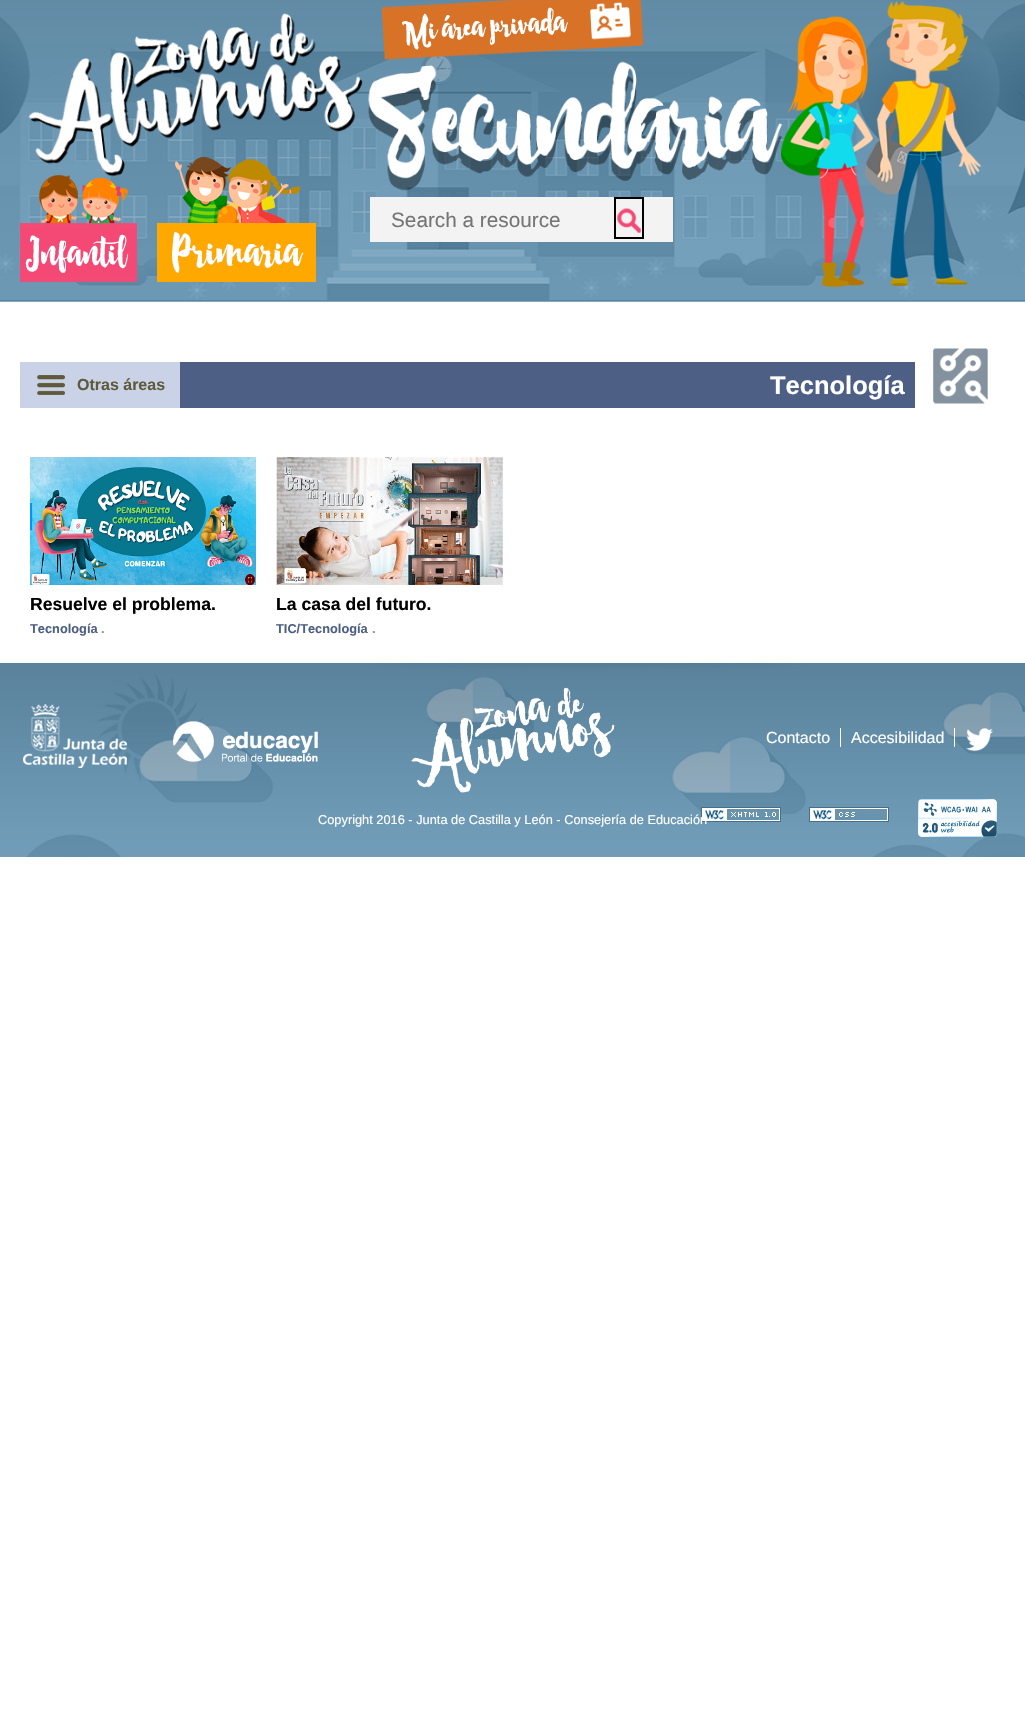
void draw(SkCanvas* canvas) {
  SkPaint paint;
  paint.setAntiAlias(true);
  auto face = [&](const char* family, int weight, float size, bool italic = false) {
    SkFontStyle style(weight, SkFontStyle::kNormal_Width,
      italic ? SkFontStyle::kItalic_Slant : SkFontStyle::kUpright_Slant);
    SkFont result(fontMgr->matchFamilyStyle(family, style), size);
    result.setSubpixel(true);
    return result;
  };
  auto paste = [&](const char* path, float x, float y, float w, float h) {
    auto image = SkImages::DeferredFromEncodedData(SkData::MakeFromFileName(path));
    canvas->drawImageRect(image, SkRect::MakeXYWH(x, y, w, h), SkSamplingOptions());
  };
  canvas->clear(0xffffffff);
  paste("img/1.png", 0, 0, 1025, 302);
  paste("img/4.png", 20, 175, 117, 107);
  paste("img/5.png", 157, 157, 159, 125);
  paste("img/2.png", 28, 13, 335, 164);
  paste("img/6.png", 368, 1, 613, 286);
  paste("img/3.png", 382, 0, 261, 60);
  paint.setColor(0xfff3f3f3);
  canvas->drawRect(SkRect::MakeXYWH(370, 197, 303, 45), paint);
  paste("img/7.png", 617, 208, 24, 25);
  paint.setStroke(true);
  paint.setStrokeWidth(2);
  paint.setColor(0xff000000);
  canvas->drawRect(SkRect::MakeXYWH(615, 198, 28, 40), paint);
  paste("img/8.png", 30, 457, 226, 128);
  paste("img/9.png", 276, 457, 227, 128);
  paste("img/10.png", 933, 348, 55, 56);
  paint.setStroke(false);
  paint.setColor(0xff4e5f85);
  canvas->drawRect(SkRect::MakeXYWH(180, 362, 735, 46), paint);
  paint.setColor(0xffc9d2e6);
  canvas->drawRect(SkRect::MakeXYWH(20, 362, 160, 46), paint);
  paste("img/11.png", 37, 375, 28, 20);
  paste("img/12.png", 0, 663, 1025, 194);
  paste("img/13.png", 411, 687, 204, 106);
  paste("img/14.png", 23, 704, 104, 64);
  paste("img/15.png", 173, 721, 145, 41);
  paint.setColor(0xffffffff);
  canvas->drawRect(SkRect::MakeXYWH(840, 728, 1, 19), paint);
  canvas->drawRect(SkRect::MakeXYWH(954, 728, 1, 19), paint);
  paste("img/16.png", 966, 728, 27, 23);
  paste("img/17.png", 701, 807, 80, 15);
  paste("img/18.png", 809, 807, 80, 15);
  paste("img/19.png", 918, 799, 79, 38);
  auto f0 = face("Liberation Sans", 400, 20.75f);
  paint.setColor(0xff757575);
  canvas->drawString("Search a resource", 391, 227, f0, paint);
  auto f1 = face("Liberation Sans", 700, 25.5f);
  paint.setColor(0xffffffff);
  canvas->drawString("Tecnología", 770, 394, f1, paint);
  auto f2 = face("Liberation Sans", 700, 17.6f);
  paint.setColor(0xff000000);
  canvas->drawString("Resuelve el problema.", 30, 610, f2, paint);
  auto f3 = face("Liberation Sans", 700, 12.8f);
  paint.setColor(0xff4e5f85);
  canvas->drawString("Tecnología", 30, 633, f3, paint);
  paint.setColor(0xff8c8c8c);
  canvas->drawString(".", 101, 633, f3, paint);
  paint.setColor(0xff000000);
  canvas->drawString("La casa del futuro.", 276, 610, f2, paint);
  paint.setColor(0xff4e5f85);
  canvas->drawString("TIC/Tecnología", 276, 633, f3, paint);
  paint.setColor(0xff8c8c8c);
  canvas->drawString(".", 372, 633, f3, paint);
  auto f4 = face("Liberation Sans", 700, 16);
  paint.setColor(0xff5e5a3b);
  canvas->drawString("Otras áreas", 77, 390, f4, paint);
  auto f5 = face("Liberation Sans", 400, 16);
  paint.setColor(0xffffffff);
  canvas->drawString("Contacto", 766, 743, f5, paint);
  canvas->drawString("Accesibilidad", 851, 743, f5, paint);
  auto f6 = face("Liberation Sans", 400, 12.8f);
  canvas->drawString("Copyright 2016 - Junta de Castilla y León - Consejería de Educación", 318, 824, f6, paint);
}
